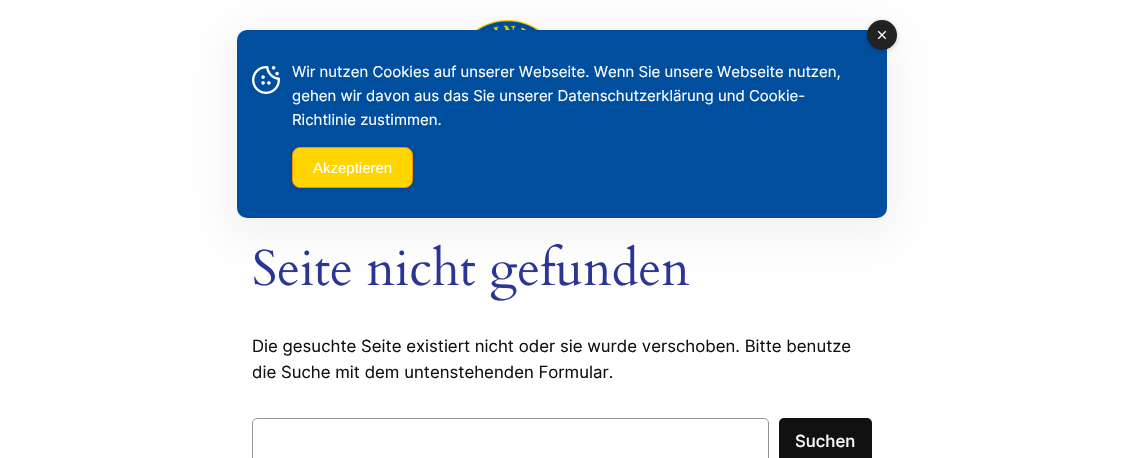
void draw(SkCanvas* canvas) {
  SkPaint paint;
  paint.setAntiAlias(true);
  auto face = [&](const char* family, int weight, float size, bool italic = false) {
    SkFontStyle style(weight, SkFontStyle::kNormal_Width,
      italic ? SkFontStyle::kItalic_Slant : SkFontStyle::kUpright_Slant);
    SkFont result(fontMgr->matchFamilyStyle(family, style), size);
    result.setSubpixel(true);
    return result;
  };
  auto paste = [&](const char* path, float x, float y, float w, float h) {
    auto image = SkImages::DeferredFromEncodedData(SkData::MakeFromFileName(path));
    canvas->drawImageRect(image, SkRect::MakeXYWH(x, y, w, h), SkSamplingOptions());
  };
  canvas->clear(0xffffffff);
  paste("img/3.png", 475, 20, 65, 10);
  paste("img/4.png", 254, 243, 436, 58);
  paint.setColor(0x0d000000);
  paint.setMaskFilter(SkMaskFilter::MakeBlur(kNormal_SkBlurStyle, 20));
  canvas->drawRoundRect(SkRect::MakeXYWH(227, 30, 670, 208), 20, 20, paint);
  paint.setMaskFilter(nullptr);
  paint.setColor(0xff004e9e);
  canvas->drawRoundRect(SkRect::MakeXYWH(237, 30, 650, 188), 10, 10, paint);
  paint.setColor(0x33000000);
  paint.setMaskFilter(SkMaskFilter::MakeBlur(kNormal_SkBlurStyle, 2));
  canvas->drawRoundRect(SkRect::MakeXYWH(867, 21, 30, 30), 15, 15, paint);
  paint.setMaskFilter(nullptr);
  paint.setColor(0xff222222);
  canvas->drawCircle(882, 35, 15, paint);
  paste("img/1.png", 877, 30, 10, 10);
  paste("img/2.png", 252, 66, 28, 28);
  paint.setColor(0x1a000000);
  paint.setMaskFilter(SkMaskFilter::MakeBlur(kNormal_SkBlurStyle, 2));
  canvas->drawRoundRect(SkRect::MakeXYWH(292, 148, 121, 41), 8, 8, paint);
  paint.setMaskFilter(nullptr);
  paint.setColor(0xffffd500);
  canvas->drawRoundRect(SkRect::MakeXYWH(292.5f, 147.5f, 120, 40), 7.5f, 7.5f, paint);
  paint.setStroke(true);
  paint.setStrokeWidth(1);
  paint.setColor(0xfff39100);
  canvas->drawRoundRect(SkRect::MakeXYWH(292.5f, 147.5f, 120, 40), 7.5f, 7.5f, paint);
  paint.setColor(0xff949494);
  canvas->drawRoundRect(SkRect::MakeXYWH(252.5f, 418.5f, 516, 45), 4.5f, 4.5f, paint);
  paint.setStroke(false);
  paint.setColor(0xff111111);
  canvas->drawRoundRect(SkRect::MakeXYWH(779, 418, 93, 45), 5, 5, paint);
  auto f0 = face("Inter", 400, 15);
  paint.setColor(0xffffffff);
  {
    const struct { const char* s; float x, y; } items[] = {
      {"Wir nutzen Cookies auf unserer Webseite. Wenn Sie unsere Webseite nutzen,", 292, 77},
      {"gehen wir davon aus das Sie unserer Datenschutzerklärung und Cookie-", 292, 101},
      {"Richtlinie zustimmen.", 292, 125},
    };
    for (auto [s, x, y] : items) {
      canvas->drawString(s, x, y, f0, paint);
    }
  }
  auto f1 = face("Liberation Sans", 400, 15);
  canvas->drawString("Akzeptieren", 313, 173, f1, paint);
  auto f2 = face("Inter", 400, 16.8f);
  paint.setColor(0xff111111);
  canvas->drawString("Die gesuchte Seite existiert nicht oder sie wurde verschoben. Bitte benutze", 252, 352, f2, paint);
  canvas->drawString("die Suche mit dem untenstehenden Formular.", 252, 378, f2, paint);
  auto f3 = face("Inter", 500, 16.8f);
  paint.setColor(0xfff9f9f9);
  canvas->drawString("Suchen", 795, 447, f3, paint);
}
